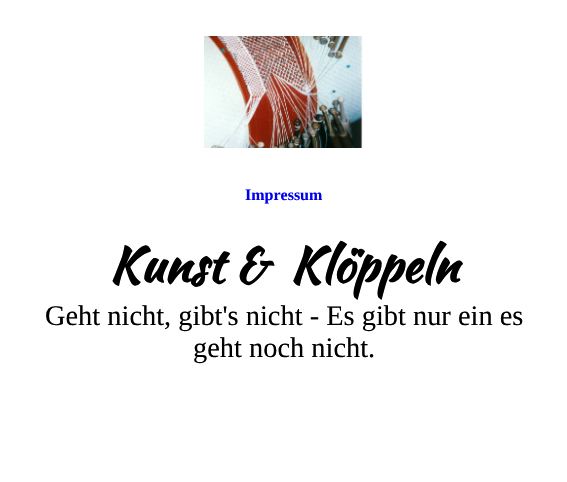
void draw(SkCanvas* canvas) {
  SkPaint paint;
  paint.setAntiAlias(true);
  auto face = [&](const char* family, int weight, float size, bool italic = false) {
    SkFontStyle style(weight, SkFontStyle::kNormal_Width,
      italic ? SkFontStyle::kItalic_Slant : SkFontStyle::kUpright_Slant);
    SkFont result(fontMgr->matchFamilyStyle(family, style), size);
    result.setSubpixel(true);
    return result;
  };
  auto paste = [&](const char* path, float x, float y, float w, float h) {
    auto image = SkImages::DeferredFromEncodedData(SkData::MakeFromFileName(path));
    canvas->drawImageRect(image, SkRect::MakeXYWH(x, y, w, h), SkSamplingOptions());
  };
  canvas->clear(0xffffffff);
  paste("img/1.png", 204, 36, 160, 112);
  auto f0 = face("Liberation Serif", 700, 16);
  paint.setColor(0xff0000ee);
  canvas->drawString("Impressum", 245, 200, f0, paint);
  auto f1 = face("Kaushan Script", 700, 48);
  paint.setColor(0xff000000);
  canvas->drawString("Kunst &  Klöppeln", 109, 282, f1, paint);
  auto f2 = face("Liberation Serif", 400, 28.4f);
  canvas->drawString("Geht nicht, gibt's nicht - Es gibt nur ein es", 45, 325, f2, paint);
  canvas->drawString("geht noch nicht.", 193, 357, f2, paint);
}
